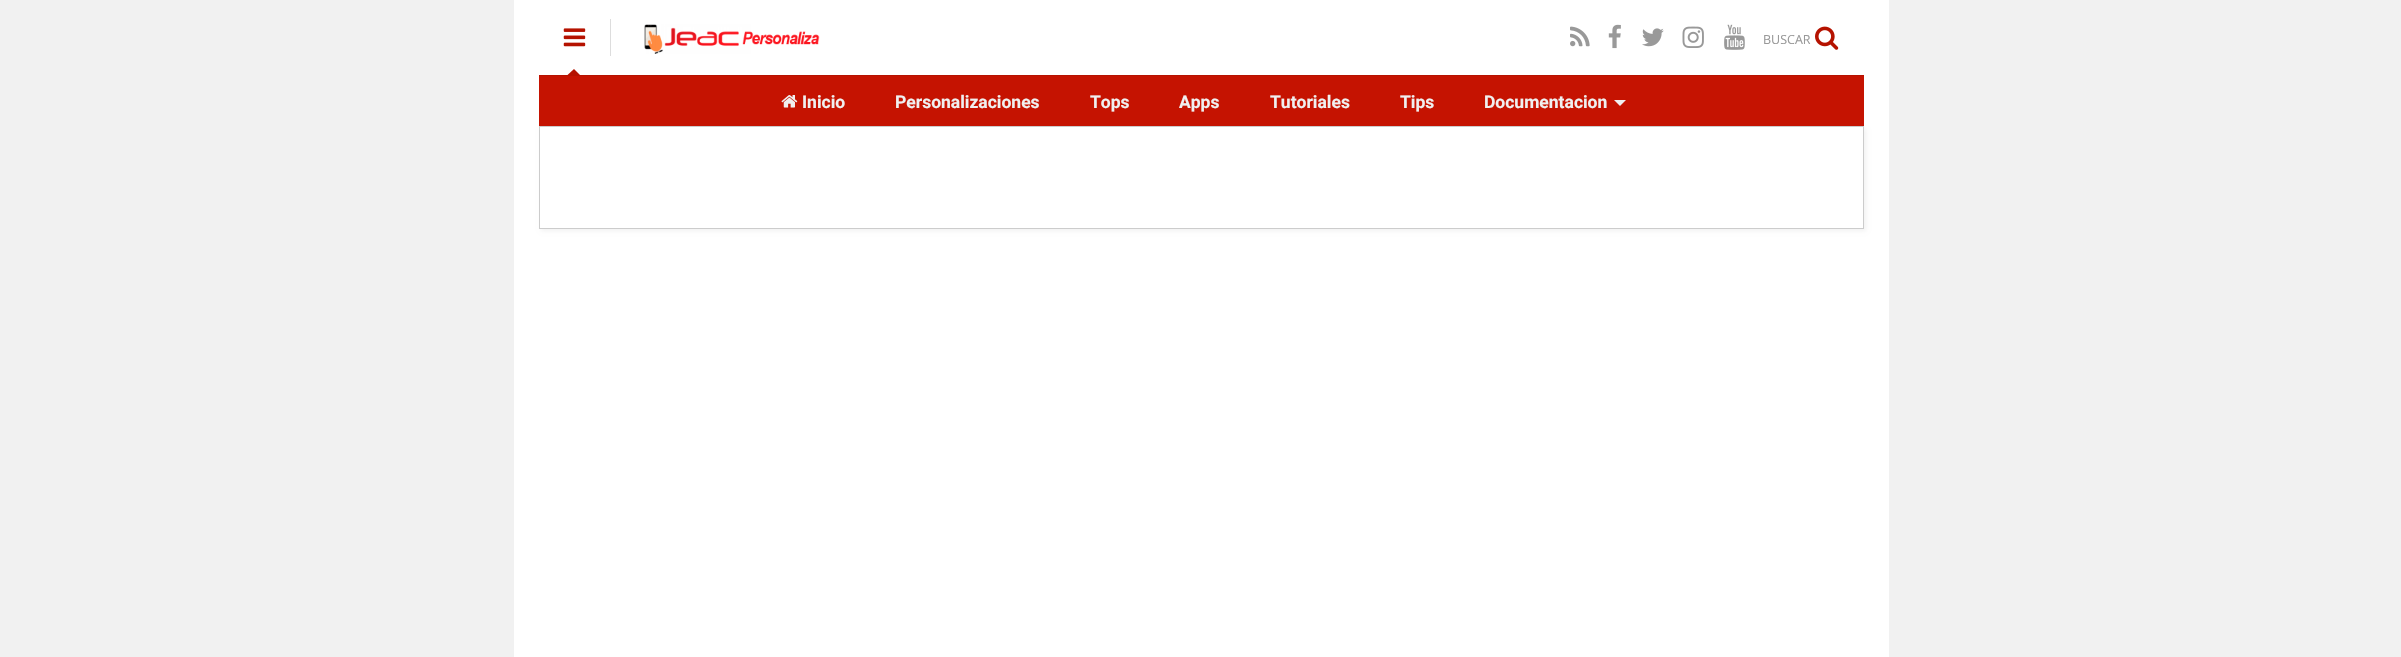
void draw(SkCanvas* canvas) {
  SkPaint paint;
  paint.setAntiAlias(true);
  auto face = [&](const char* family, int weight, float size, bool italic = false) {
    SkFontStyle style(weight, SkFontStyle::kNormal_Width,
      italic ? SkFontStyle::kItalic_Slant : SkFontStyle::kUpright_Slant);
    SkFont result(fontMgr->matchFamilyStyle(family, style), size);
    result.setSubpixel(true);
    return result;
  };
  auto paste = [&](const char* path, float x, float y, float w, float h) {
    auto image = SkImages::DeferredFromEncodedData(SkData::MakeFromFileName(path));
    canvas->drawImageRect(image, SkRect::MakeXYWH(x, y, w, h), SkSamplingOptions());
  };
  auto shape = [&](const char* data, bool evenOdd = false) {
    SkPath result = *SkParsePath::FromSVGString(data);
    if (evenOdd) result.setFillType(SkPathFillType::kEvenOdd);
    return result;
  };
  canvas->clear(0xfff1f1f1);
  paint.setColor(0xffffffff);
  canvas->drawRect(SkRect::MakeXYWH(514, 0, 1375, 657), paint);
  paste("img/1.png", 563, 28, 23, 19);
  paint.setColor(0xffb51200);
  canvas->drawPath(shape("M580 75H567.5L574 69Z"), paint);
  paint.setColor(0xffdddddd);
  canvas->drawRect(SkRect::MakeXYWH(610, 19, 1, 37), paint);
  paste("img/2.png", 644, 24, 176, 30);
  paste("img/3.png", 1570, 26, 20, 21);
  paste("img/4.png", 1608, 24, 13, 25);
  paste("img/5.png", 1642, 28, 22, 19);
  paste("img/6.png", 1682, 26, 22, 22);
  paste("img/7.png", 1724, 24, 21, 26);
  paste("img/8.png", 1815, 26, 24, 24);
  paint.setColor(0x0d000000);
  paint.setMaskFilter(SkMaskFilter::MakeBlur(kNormal_SkBlurStyle, 2));
  canvas->drawRect(SkRect::MakeXYWH(541, 129, 1325, 102), paint);
  paint.setMaskFilter(nullptr);
  paint.setColor(0xffc51301);
  canvas->drawRect(SkRect::MakeXYWH(539, 76, 1325, 50), paint);
  paint.setColor(0xffb51200);
  canvas->drawRect(SkRect::MakeXYWH(539, 75, 1325, 1), paint);
  paste("img/9.png", 781, 95, 17, 13);
  paint.setColor(0xfff0f0f0);
  canvas->drawPath(shape("M1614 100H1626L1620 106Z"), paint);
  paint.setColor(0xffffffff);
  canvas->drawRect(SkRect::MakeXYWH(539.5f, 126.5f, 1324, 102), paint);
  paint.setStroke(true);
  paint.setStrokeWidth(1);
  paint.setColor(0xffcccccc);
  canvas->drawRect(SkRect::MakeXYWH(539.5f, 126.5f, 1324, 102), paint);
  auto f0 = face("Open Sans", 400, 12.5f);
  paint.setStroke(false);
  paint.setColor(0xff999999);
  canvas->drawString("BUSCAR", 1763, 44, f0, paint);
  auto f1 = face("Roboto", 700, 17.5f);
  paint.setColor(0xfff0f0f0);
  {
    const struct { const char* s; float x, y; } items[] = {
      {"Inicio", 802, 108},
      {"Personalizaciones", 895, 108},
      {"Tops", 1090, 108},
      {"Apps", 1179, 108},
      {"Tutoriales", 1270, 108},
      {"Tips", 1400, 108},
      {"Documentacion", 1484, 108},
    };
    for (auto [s, x, y] : items) {
      canvas->drawString(s, x, y, f1, paint);
    }
  }
}
